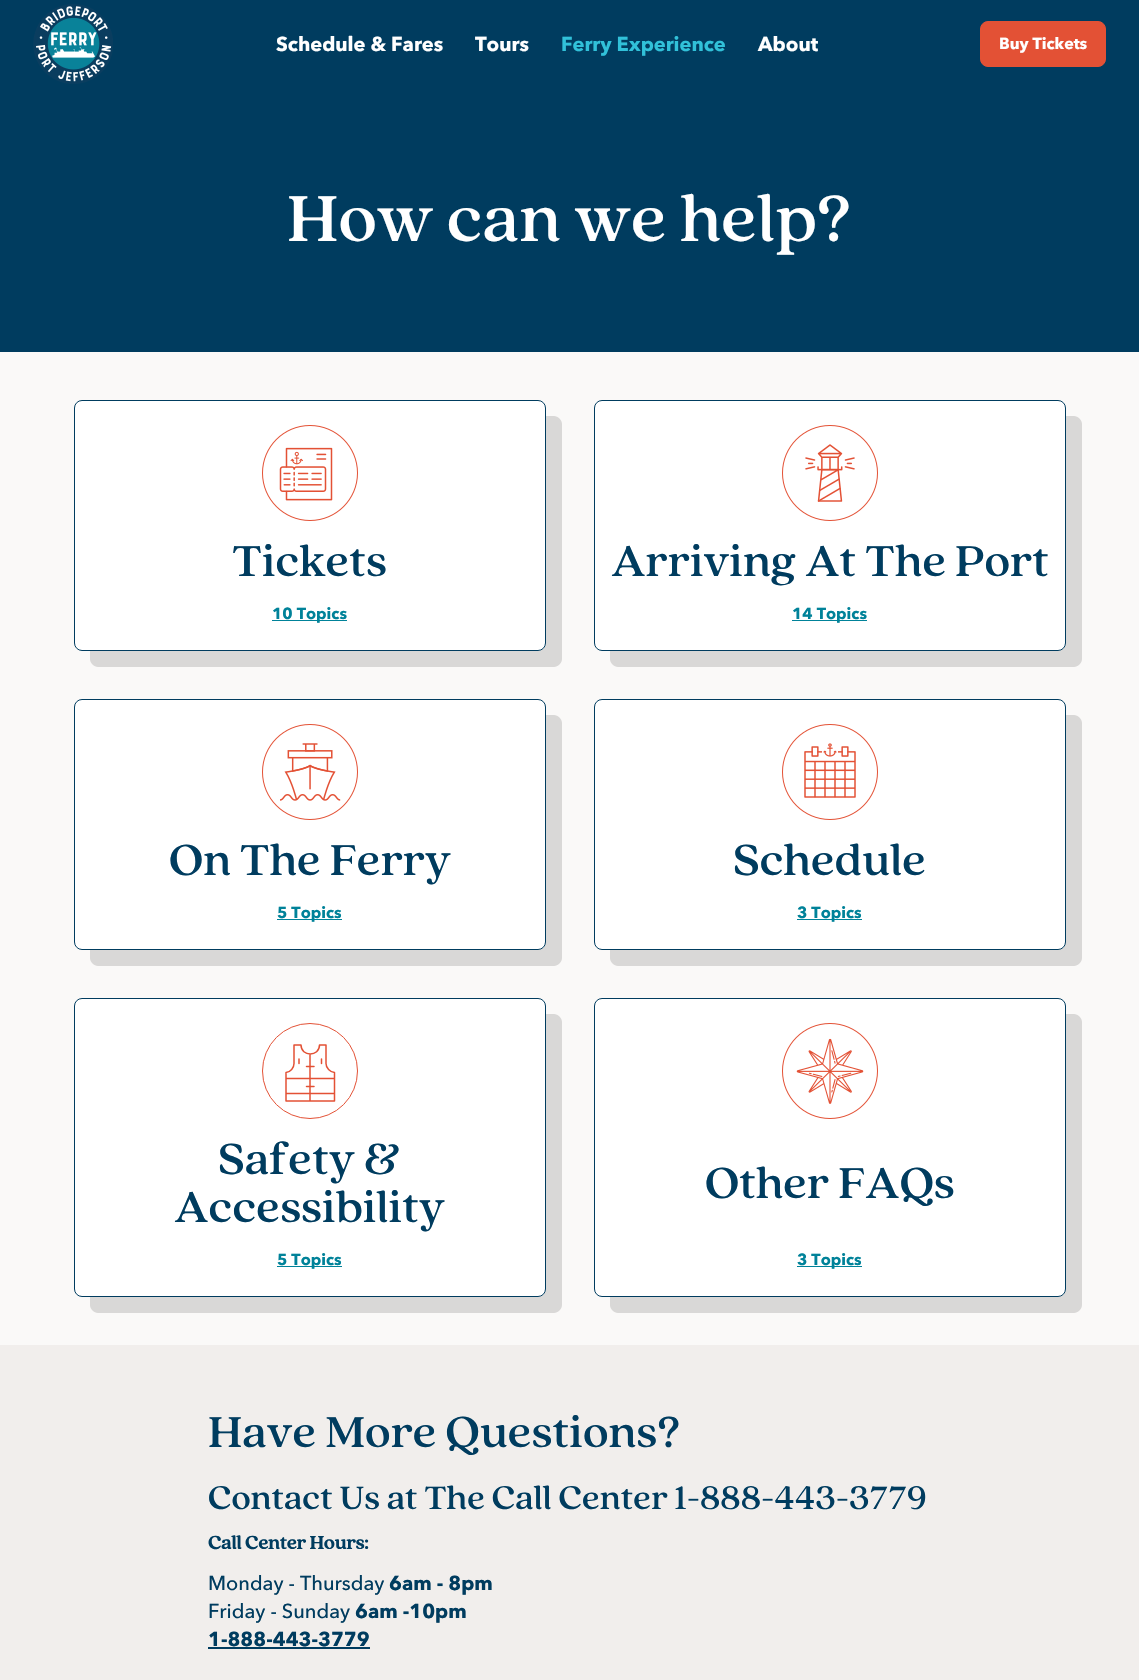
void draw(SkCanvas* canvas) {
  SkPaint paint;
  paint.setAntiAlias(true);
  auto face = [&](const char* family, int weight, float size, bool italic = false) {
    SkFontStyle style(weight, SkFontStyle::kNormal_Width,
      italic ? SkFontStyle::kItalic_Slant : SkFontStyle::kUpright_Slant);
    SkFont result(fontMgr->matchFamilyStyle(family, style), size);
    result.setSubpixel(true);
    return result;
  };
  auto paste = [&](const char* path, float x, float y, float w, float h) {
    auto image = SkImages::DeferredFromEncodedData(SkData::MakeFromFileName(path));
    canvas->drawImageRect(image, SkRect::MakeXYWH(x, y, w, h), SkSamplingOptions());
  };
  auto shape = [&](const char* data, bool evenOdd = false) {
    SkPath result = *SkParsePath::FromSVGString(data);
    if (evenOdd) result.setFillType(SkPathFillType::kEvenOdd);
    return result;
  };
  canvas->clear(0xff003c5f);
  paste("img/1.png", 33, 4, 80, 80);
  paint.setColor(0xffe35135);
  canvas->drawRoundRect(SkRect::MakeXYWH(980.5f, 21.5f, 125, 45), 7.5f, 7.5f, paint);
  paint.setStroke(true);
  paint.setStrokeWidth(1);
  canvas->drawRoundRect(SkRect::MakeXYWH(980.5f, 21.5f, 125, 45), 7.5f, 7.5f, paint);
  paint.setStroke(false);
  paint.setColor(0xfffaf9f8);
  canvas->drawRect(SkRect::MakeXYWH(0, 352, 1139, 993), paint);
  paint.setColor(0xffd9d8d7);
  canvas->drawPath(shape("M90 651V659C90 663 94 667 98 667H554C558 667 562 663 562 659V424C562 420 558 416 554 416H546V643C546 647 542 651 538 651Z"), paint);
  paint.setColor(0xffffffff);
  canvas->drawRoundRect(SkRect::MakeXYWH(74.5f, 400.5f, 471, 250), 7.5f, 7.5f, paint);
  paint.setStroke(true);
  paint.setColor(0xff003c5f);
  canvas->drawRoundRect(SkRect::MakeXYWH(74.5f, 400.5f, 471, 250), 7.5f, 7.5f, paint);
  paste("img/2.png", 262, 425, 96, 96);
  paint.setStroke(false);
  paint.setColor(0xff008299);
  canvas->drawRect(SkRect::MakeXYWH(272, 620, 75, 1), paint);
  paint.setColor(0xffd9d8d7);
  canvas->drawPath(shape("M610 651V659C610 663 614 667 618 667H1074C1078 667 1082 663 1082 659V424C1082 420 1078 416 1074 416H1066V643C1066 647 1062 651 1058 651Z"), paint);
  paint.setColor(0xffffffff);
  canvas->drawRoundRect(SkRect::MakeXYWH(594.5f, 400.5f, 471, 250), 7.5f, 7.5f, paint);
  paint.setStroke(true);
  paint.setColor(0xff003c5f);
  canvas->drawRoundRect(SkRect::MakeXYWH(594.5f, 400.5f, 471, 250), 7.5f, 7.5f, paint);
  paste("img/3.png", 782, 425, 96, 96);
  paint.setStroke(false);
  paint.setColor(0xff008299);
  canvas->drawRect(SkRect::MakeXYWH(792, 620, 75, 1), paint);
  paint.setColor(0xffd9d8d7);
  canvas->drawPath(shape("M90 950V958C90 962 94 966 98 966H554C558 966 562 962 562 958V723C562 719 558 715 554 715H546V942C546 946 542 950 538 950Z"), paint);
  paint.setColor(0xffffffff);
  canvas->drawRoundRect(SkRect::MakeXYWH(74.5f, 699.5f, 471, 250), 7.5f, 7.5f, paint);
  paint.setStroke(true);
  paint.setColor(0xff003c5f);
  canvas->drawRoundRect(SkRect::MakeXYWH(74.5f, 699.5f, 471, 250), 7.5f, 7.5f, paint);
  paste("img/4.png", 262, 724, 96, 96);
  paint.setStroke(false);
  paint.setColor(0xff008299);
  canvas->drawRect(SkRect::MakeXYWH(277, 919, 65, 1), paint);
  paint.setColor(0xffd9d8d7);
  canvas->drawPath(shape("M610 950V958C610 962 614 966 618 966H1074C1078 966 1082 962 1082 958V723C1082 719 1078 715 1074 715H1066V942C1066 946 1062 950 1058 950Z"), paint);
  paint.setColor(0xffffffff);
  canvas->drawRoundRect(SkRect::MakeXYWH(594.5f, 699.5f, 471, 250), 7.5f, 7.5f, paint);
  paint.setStroke(true);
  paint.setColor(0xff003c5f);
  canvas->drawRoundRect(SkRect::MakeXYWH(594.5f, 699.5f, 471, 250), 7.5f, 7.5f, paint);
  paste("img/5.png", 782, 724, 96, 96);
  paint.setStroke(false);
  paint.setColor(0xff008299);
  canvas->drawRect(SkRect::MakeXYWH(797, 919, 65, 1), paint);
  paint.setColor(0xffd9d8d7);
  canvas->drawPath(shape("M90 1297V1305C90 1309 94 1313 98 1313H554C558 1313 562 1309 562 1305V1022C562 1018 558 1014 554 1014H546V1289C546 1293 542 1297 538 1297Z"), paint);
  paint.setColor(0xffffffff);
  canvas->drawRoundRect(SkRect::MakeXYWH(74.5f, 998.5f, 471, 298), 7.5f, 7.5f, paint);
  paint.setStroke(true);
  paint.setColor(0xff003c5f);
  canvas->drawRoundRect(SkRect::MakeXYWH(74.5f, 998.5f, 471, 298), 7.5f, 7.5f, paint);
  paint.setStrokeWidth(1.5f);
  paint.setStrokeCap(SkPaint::kRound_Cap);
  paint.setStrokeJoin(SkPaint::kRound_Join);
  paint.setColor(0xffe35135);
  canvas->drawPath(shape("M294 1045H301C301 1057 319.5 1057 319.5 1045H326V1063.5C326 1068 330 1072 334.5 1072.5V1101H286V1072.5C290.5 1072 294 1068 294 1063.5ZM310 1101V1054M306.5 1066.5H314M306.5 1086.5H314M286 1078.5H334.5M286 1093.5H334.5M321.5 1059V1063.5M299 1059V1063.5"), paint);
  paint.setStrokeWidth(1);
  paint.setStrokeCap(SkPaint::kButt_Cap);
  paint.setStrokeJoin(SkPaint::kMiter_Join);
  canvas->drawCircle(310, 1071, 47.5f, paint);
  paint.setStroke(false);
  paint.setColor(0xff008299);
  canvas->drawRect(SkRect::MakeXYWH(277, 1266, 65, 1), paint);
  paint.setColor(0xffd9d8d7);
  canvas->drawPath(shape("M610 1297V1305C610 1309 614 1313 618 1313H1074C1078 1313 1082 1309 1082 1305V1022C1082 1018 1078 1014 1074 1014H1066V1289C1066 1293 1062 1297 1058 1297Z"), paint);
  paint.setColor(0xffffffff);
  canvas->drawRoundRect(SkRect::MakeXYWH(594.5f, 998.5f, 471, 298), 7.5f, 7.5f, paint);
  paint.setStroke(true);
  paint.setColor(0xff003c5f);
  canvas->drawRoundRect(SkRect::MakeXYWH(594.5f, 998.5f, 471, 298), 7.5f, 7.5f, paint);
  paste("img/6.png", 782, 1023, 96, 96);
  paint.setStroke(false);
  {
    const struct { float x, y, w, h; SkColor color; } items[] = {
      {797, 1266, 65, 1, 0xff008299},
      {0, 1345, 1139, 335, 0xfff1eeec},
      {208, 1647, 162, 2, 0xff003c5f},
    };
    for (auto [x, y, w, h, color] : items) {
      paint.setColor(color);
      canvas->drawRect(SkRect::MakeXYWH(x, y, w, h), paint);
    }
  }
  auto f0 = face("avenir", 700, 20);
  paint.setColor(0xffffffff);
  canvas->drawString("Schedule & Fares", 276, 51, f0, paint);
  canvas->drawString("Tours", 475, 51, f0, paint);
  paint.setColor(0xff31c1d9);
  canvas->drawString("Ferry Experience", 561, 51, f0, paint);
  paint.setColor(0xffffffff);
  canvas->drawString("About", 758, 51, f0, paint);
  auto f1 = face("avenir", 700, 16);
  canvas->drawString("Buy Tickets", 999, 49, f1, paint);
  auto f2 = face("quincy", 500, 72);
  canvas->drawString("How can we help?", 287, 241, f2, paint);
  auto f3 = face("quincy", 500, 48);
  paint.setColor(0xff003c5f);
  canvas->drawString("Tickets", 232, 576, f3, paint);
  paint.setColor(0xff008299);
  canvas->drawString("10 Topics", 272, 619, f1, paint);
  paint.setColor(0xff003c5f);
  canvas->drawString("Arriving At The Port", 611, 576, f3, paint);
  paint.setColor(0xff008299);
  canvas->drawString("14 Topics", 792, 619, f1, paint);
  paint.setColor(0xff003c5f);
  canvas->drawString("On The Ferry", 169, 875, f3, paint);
  paint.setColor(0xff008299);
  canvas->drawString("5 Topics", 277, 918, f1, paint);
  paint.setColor(0xff003c5f);
  canvas->drawString("Schedule", 733, 875, f3, paint);
  paint.setColor(0xff008299);
  canvas->drawString("3 Topics", 797, 918, f1, paint);
  paint.setColor(0xff003c5f);
  canvas->drawString("Safety &", 218, 1174, f3, paint);
  canvas->drawString("Accessibility", 174, 1222, f3, paint);
  paint.setColor(0xff008299);
  canvas->drawString("5 Topics", 277, 1265, f1, paint);
  paint.setColor(0xff003c5f);
  canvas->drawString("Other FAQs", 705, 1198, f3, paint);
  paint.setColor(0xff008299);
  canvas->drawString("3 Topics", 797, 1265, f1, paint);
  paint.setColor(0xff003c5f);
  canvas->drawString("Have More Questions?", 208, 1447, f3, paint);
  auto f4 = face("quincy", 500, 36);
  canvas->drawString("Contact Us at The Call Center 1-888-443-3779", 208, 1509, f4, paint);
  auto f5 = face("quincy", 700, 20);
  canvas->drawString("Call Center Hours:", 208, 1549, f5, paint);
  auto f6 = face("avenir", 500, 20);
  canvas->drawString("Monday - Thursday", 208, 1590, f6, paint);
  canvas->drawString("6am - 8pm", 389, 1590, f0, paint);
  canvas->drawString("Friday - Sunday", 208, 1618, f6, paint);
  canvas->drawString("6am -10pm", 355, 1618, f0, paint);
  canvas->drawString("1-888-443-3779", 208, 1646, f0, paint);
}
